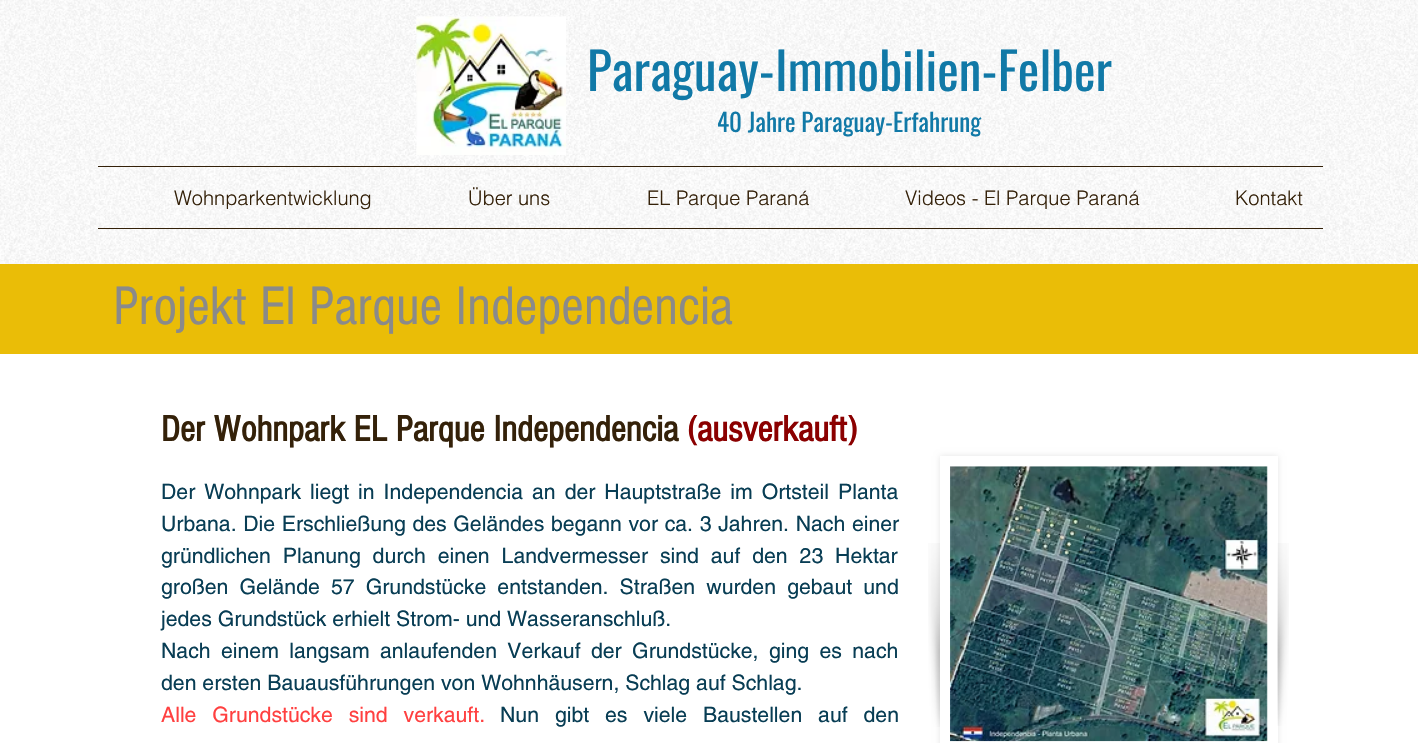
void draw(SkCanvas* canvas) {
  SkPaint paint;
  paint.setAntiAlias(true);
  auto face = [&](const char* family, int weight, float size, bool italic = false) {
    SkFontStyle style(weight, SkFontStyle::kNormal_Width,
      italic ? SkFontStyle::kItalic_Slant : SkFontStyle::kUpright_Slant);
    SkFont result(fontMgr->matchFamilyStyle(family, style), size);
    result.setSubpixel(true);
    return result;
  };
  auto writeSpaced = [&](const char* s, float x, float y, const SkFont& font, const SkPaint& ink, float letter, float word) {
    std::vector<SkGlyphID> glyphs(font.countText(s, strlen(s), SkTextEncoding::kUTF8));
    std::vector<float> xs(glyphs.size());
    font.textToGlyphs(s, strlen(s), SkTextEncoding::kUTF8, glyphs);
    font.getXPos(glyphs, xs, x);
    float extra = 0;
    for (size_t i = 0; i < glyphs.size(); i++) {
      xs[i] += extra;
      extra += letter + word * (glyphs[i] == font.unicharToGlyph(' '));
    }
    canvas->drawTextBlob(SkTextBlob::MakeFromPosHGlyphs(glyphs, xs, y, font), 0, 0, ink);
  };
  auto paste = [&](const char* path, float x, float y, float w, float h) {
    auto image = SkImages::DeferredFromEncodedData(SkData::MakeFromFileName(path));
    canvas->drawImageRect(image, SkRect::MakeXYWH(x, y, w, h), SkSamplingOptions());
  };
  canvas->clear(0xffffffff);
  paste("img/1.png", 0, 0, 1418, 264);
  paste("img/2.png", 416, 16, 150, 139);
  {
    const struct { float x, y, w, h; SkColor color; } items[] = {
      {98, 166, 1225, 1, 0xff342109},
      {98, 228, 1225, 1, 0xff342109},
      {0, 264, 1418, 90, 0xffeabd07},
    };
    for (auto [x, y, w, h, color] : items) {
      paint.setColor(color);
      canvas->drawRect(SkRect::MakeXYWH(x, y, w, h), paint);
    }
  }
  paint.setColor(0x1a000000);
  paint.setMaskFilter(SkMaskFilter::MakeBlur(kNormal_SkBlurStyle, 3));
  canvas->drawRect(SkRect::MakeXYWH(940, 456, 338, 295), paint);
  paint.setMaskFilter(nullptr);
  paint.setColor(0xffffffff);
  canvas->drawRect(SkRect::MakeXYWH(940, 456, 338, 287), paint);
  paste("img/3.png", 950, 466, 318, 276);
  paste("img/4.png", 928, 543, 12, 184);
  paste("img/5.png", 1277, 543, 12, 183);
  auto f0 = face("Oswald", 400, 51.25f);
  paint.setColor(0xff1179a7);
  canvas->drawString("Paraguay-Immobilien-Felber", 587, 91, f0, paint);
  auto f1 = face("Oswald", 400, 25);
  canvas->drawString("40 Jahre Paraguay-Erfahrung", 717, 132, f1, paint);
  auto f2 = face("helvetica", 300, 20);
  paint.setColor(0xff342109);
  {
    const struct { const char* s; float x, y; } items[] = {
      {"Wohnparkentwicklung", 174, 205},
      {"Über uns", 468, 205},
      {"EL Parque Paraná", 647, 205},
      {"Videos - El Parque Paraná", 905, 205},
      {"Kontakt", 1235, 205},
    };
    for (auto [s, x, y] : items) {
      canvas->drawString(s, x, y, f2, paint);
    }
  }
  auto f3 = face("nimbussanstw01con", 400, 56.25f);
  paint.setColor(0xff8a8a8a);
  canvas->drawString("Projekt El Parque Independencia", 113, 324, f3, paint);
  auto f4 = face("nimbussanstw01con", 700, 37.5f);
  paint.setColor(0xff342109);
  canvas->drawString("Der Wohnpark EL Parque Independencia", 161, 441, f4, paint);
  paint.setColor(0xff8b0000);
  canvas->drawString("(ausverkauft)", 687, 441, f4, paint);
  auto f5 = face("helvetica", 400, 21.25f);
  paint.setColor(0xff083d54);
  writeSpaced("Der Wohnpark liegt in Independencia an der Hauptstraße im Ortsteil Planta", 161, 499, f5, paint, 0, 3.1f);
  writeSpaced("Urbana. Die Erschließung des Geländes begann vor ca. 3 Jahren. Nach einer", 161, 531, f5, paint, 0, 0.75f);
  writeSpaced("gründlichen Planung durch einen Landvermesser sind auf den 23 Hektar", 161, 563, f5, paint, 0, 6);
  writeSpaced("großen Gelände 57 Grundstücke entstanden. Straßen wurden gebaut und", 161, 594, f5, paint, 0, 5.25f);
  canvas->drawString("jedes Grundstück erhielt Strom- und Wasseranschluß.", 161, 626, f5, paint);
  writeSpaced("Nach einem langsam anlaufenden Verkauf der Grundstücke, ging es nach", 161, 658, f5, paint, 0, 4.5f);
  canvas->drawString("den ersten Bauausführungen von Wohnhäusern, Schlag auf Schlag.", 161, 690, f5, paint);
  paint.setColor(0xffff4040);
  writeSpaced("Alle Grundstücke sind verkauft.", 161, 722, f5, paint, 0, 10);
  paint.setColor(0xff083d54);
  writeSpaced("Nun gibt es viele Baustellen auf den", 500, 722, f5, paint, 0, 10);
}
